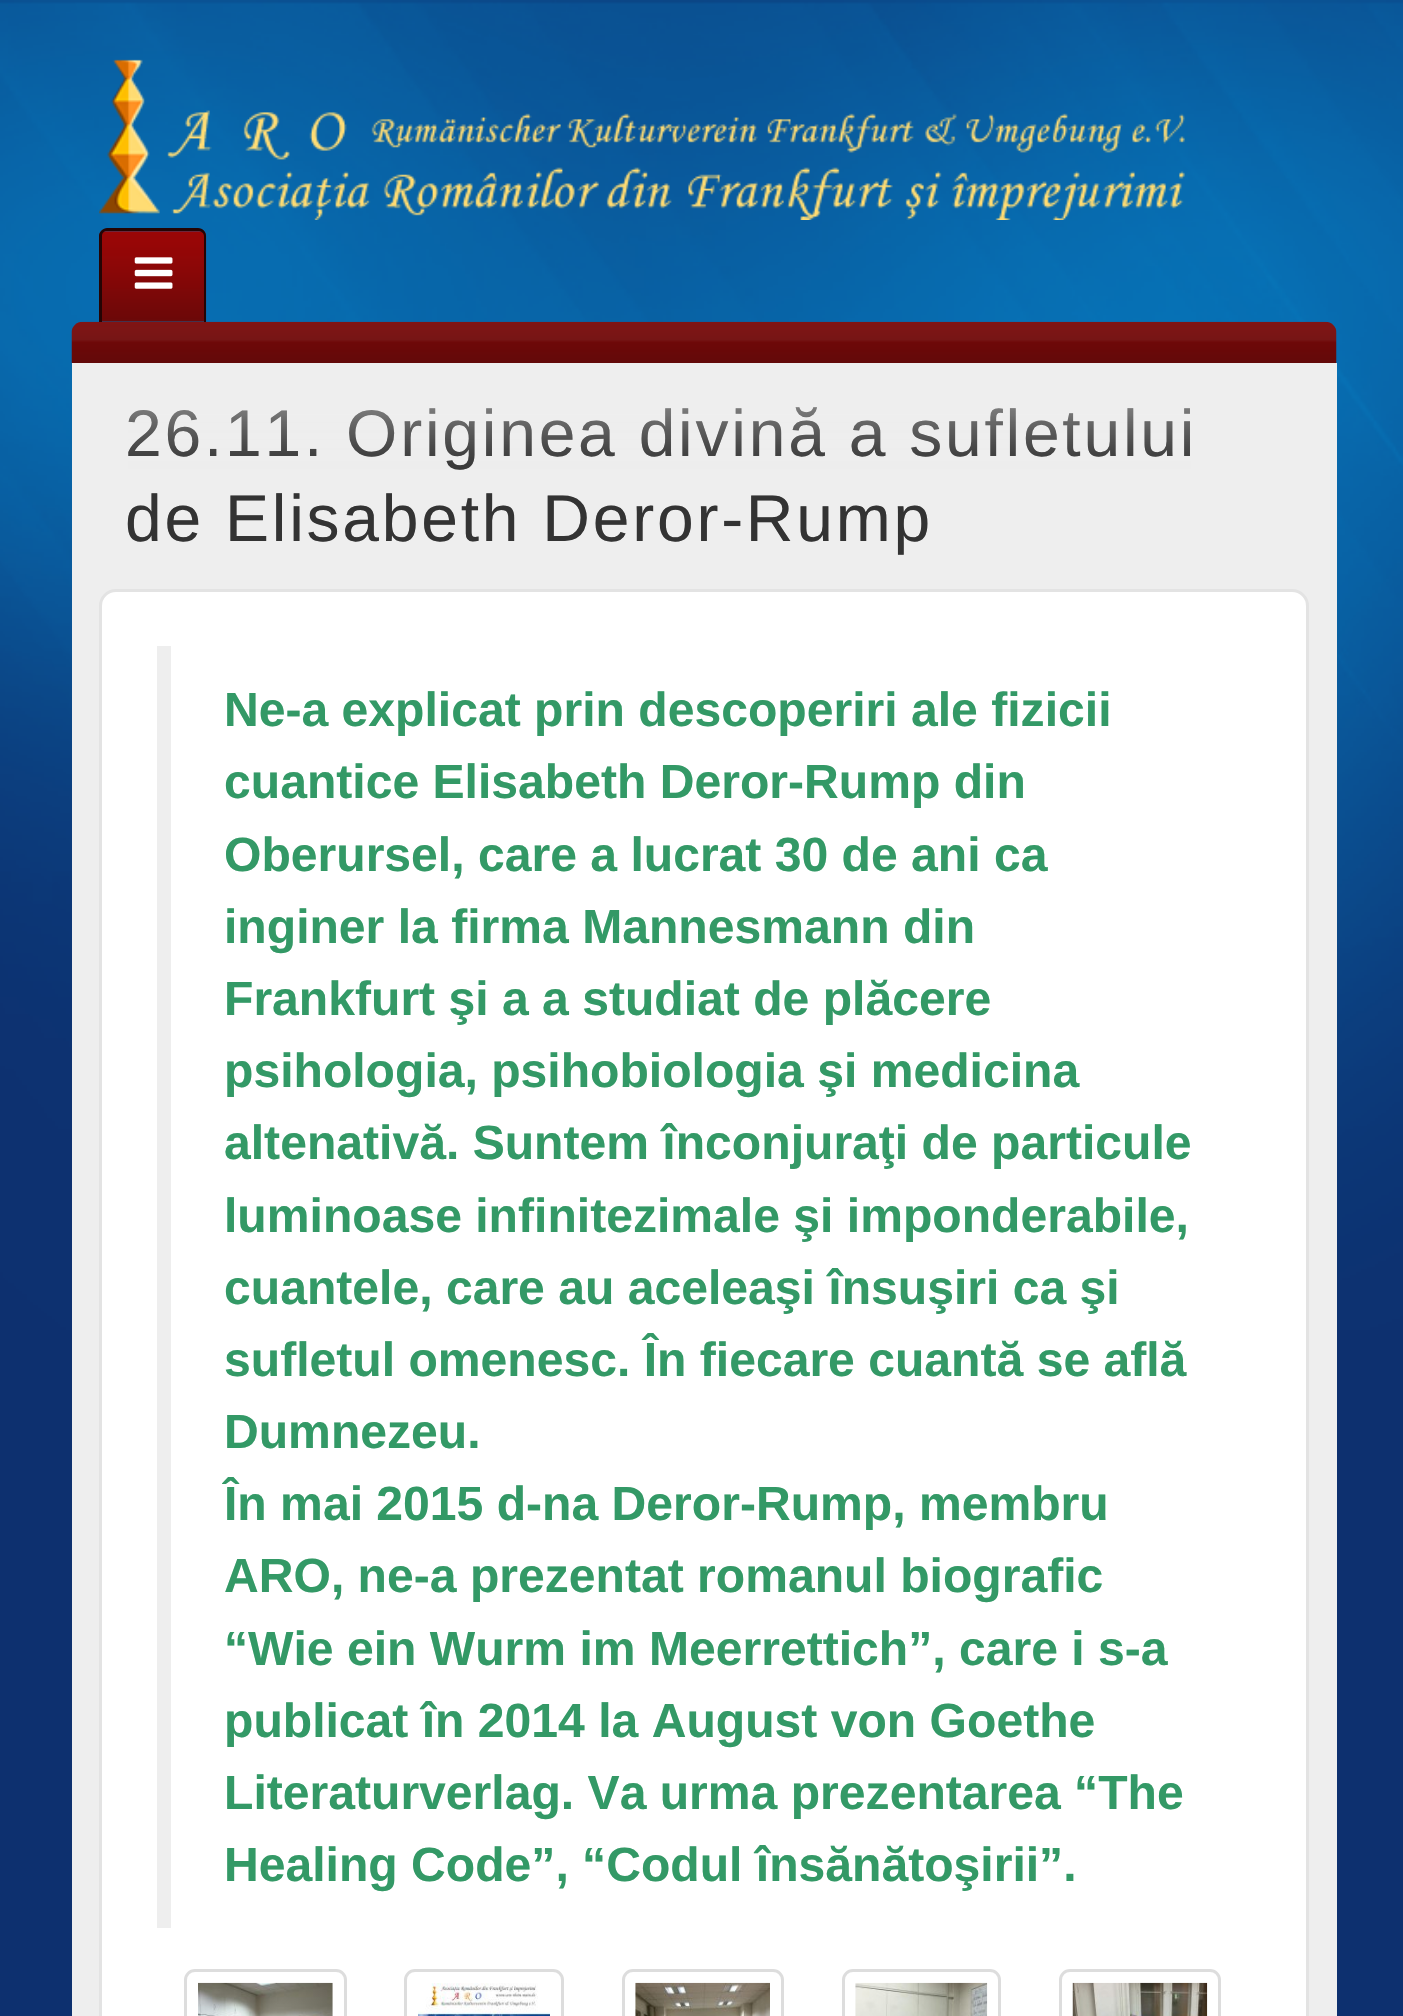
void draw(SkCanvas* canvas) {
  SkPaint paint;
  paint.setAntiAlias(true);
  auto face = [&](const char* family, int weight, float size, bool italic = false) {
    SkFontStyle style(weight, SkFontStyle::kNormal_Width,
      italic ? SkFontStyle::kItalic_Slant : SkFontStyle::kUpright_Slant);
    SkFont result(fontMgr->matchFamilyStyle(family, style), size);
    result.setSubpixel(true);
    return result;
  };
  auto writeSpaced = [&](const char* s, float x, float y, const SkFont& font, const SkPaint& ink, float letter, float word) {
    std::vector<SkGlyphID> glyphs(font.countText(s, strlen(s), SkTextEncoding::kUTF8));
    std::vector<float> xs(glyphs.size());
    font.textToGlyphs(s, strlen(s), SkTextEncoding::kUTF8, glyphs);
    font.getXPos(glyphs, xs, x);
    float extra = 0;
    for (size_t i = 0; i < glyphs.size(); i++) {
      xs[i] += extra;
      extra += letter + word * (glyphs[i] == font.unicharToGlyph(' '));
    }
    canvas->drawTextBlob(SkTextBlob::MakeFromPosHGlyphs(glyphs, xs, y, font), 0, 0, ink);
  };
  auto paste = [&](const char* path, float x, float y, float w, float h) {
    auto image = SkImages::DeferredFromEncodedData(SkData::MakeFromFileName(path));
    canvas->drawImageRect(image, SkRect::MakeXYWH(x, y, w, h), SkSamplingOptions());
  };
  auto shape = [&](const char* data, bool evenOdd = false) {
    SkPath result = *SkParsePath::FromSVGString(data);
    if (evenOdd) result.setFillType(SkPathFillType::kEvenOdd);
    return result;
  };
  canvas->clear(0xff0d306f);
  paste("img/1.png", 0, 0, 1403, 1330);
  paste("img/2.png", 99, 59, 1086, 161);
  paste("img/5.png", 71, 321, 1266, 42);
  paste("img/3.png", 99, 230, 108, 92);
  paint.setColor(0xff240404);
  canvas->drawPath(shape("M107 228H198C203 228 206 232 206 236V322H99V236C99 232 103 228 107 228ZM107 231H198C201 231 204 233 204 236V322H102V236C102 233 104 231 107 231Z", true), paint);
  paste("img/4.png", 134, 257, 39, 32);
  paint.setColor(0xffeeeeee);
  canvas->drawRect(SkRect::MakeXYWH(72, 363, 1265, 1653), paint);
  paint.setColor(0xffffffff);
  canvas->drawRoundRect(SkRect::MakeXYWH(100.5f, 590.5f, 1207, 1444), 15.5f, 15.5f, paint);
  paint.setStroke(true);
  paint.setStrokeWidth(3);
  paint.setColor(0xffe3e3e3);
  canvas->drawRoundRect(SkRect::MakeXYWH(100.5f, 590.5f, 1207, 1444), 15.5f, 15.5f, paint);
  paint.setStroke(false);
  paint.setColor(0xffeeeeee);
  canvas->drawRect(SkRect::MakeXYWH(157, 646, 14, 1282), paint);
  paint.setStroke(true);
  paint.setColor(0xffdddddd);
  canvas->drawRoundRect(SkRect::MakeXYWH(185.5f, 1970.5f, 160, 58), 9.5f, 9.5f, paint);
  paste("img/7.png", 198, 1982, 135, 34);
  canvas->drawRoundRect(SkRect::MakeXYWH(405.5f, 1970.5f, 157, 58), 9.5f, 9.5f, paint);
  paste("img/8.png", 418, 1983, 132, 33);
  canvas->drawRoundRect(SkRect::MakeXYWH(623.5f, 1970.5f, 159, 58), 9.5f, 9.5f, paint);
  paste("img/9.png", 635, 1982, 135, 34);
  canvas->drawRoundRect(SkRect::MakeXYWH(843.5f, 1970.5f, 156, 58), 9.5f, 9.5f, paint);
  paste("img/10.png", 855, 1982, 133, 34);
  canvas->drawRoundRect(SkRect::MakeXYWH(1060.5f, 1970.5f, 159, 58), 9.5f, 9.5f, paint);
  paste("img/11.png", 1072, 1982, 136, 34);
  auto f0 = face("Liberation Sans", 400, 66);
  paint.setStroke(false);
  paint.setColor(0xff333333);
  writeSpaced("26.11. Originea divină a sufletului", 125, 456, f0, paint, 2.75f, 0);
  paste("img/6.png", 128, 407, 1063, 62);
  writeSpaced("de Elisabeth Deror-Rump", 125, 541, f0, paint, 2.75f, 0);
  auto f1 = face("Liberation Sans", 700, 48.1f);
  paint.setColor(0xff339966);
  {
    const struct { const char* s; float x, y; } items[] = {
      {"Ne-a explicat prin descoperiri ale fizicii", 224, 726},
      {"cuantice Elisabeth Deror-Rump din", 224, 798},
      {"Oberursel, care a lucrat 30 de ani ca", 224, 871},
      {"inginer la firma Mannesmann din", 224, 943},
      {"Frankfurt şi a a studiat de plăcere", 224, 1015},
      {"psihologia, psihobiologia şi medicina", 224, 1087},
      {"altenativă. Suntem înconjuraţi de particule", 224, 1159},
      {"luminoase infinitezimale şi imponderabile,", 224, 1232},
      {"cuantele, care au aceleaşi însuşiri ca şi", 224, 1304},
      {"sufletul omenesc. În fiecare cuantă se află", 224, 1376},
      {"Dumnezeu.", 224, 1448},
      {"În mai 2015 d-na Deror-Rump, membru", 224, 1520},
      {"ARO, ne-a prezentat romanul biografic", 224, 1592},
      {"“Wie ein Wurm im Meerrettich”, care i s-a", 224, 1665},
      {"publicat în 2014 la August von Goethe", 224, 1737},
      {"Literaturverlag. Va urma prezentarea “The", 224, 1809},
      {"Healing Code”, “Codul însănătoşirii”.", 224, 1881},
    };
    for (auto [s, x, y] : items) {
      canvas->drawString(s, x, y, f1, paint);
    }
  }
}
